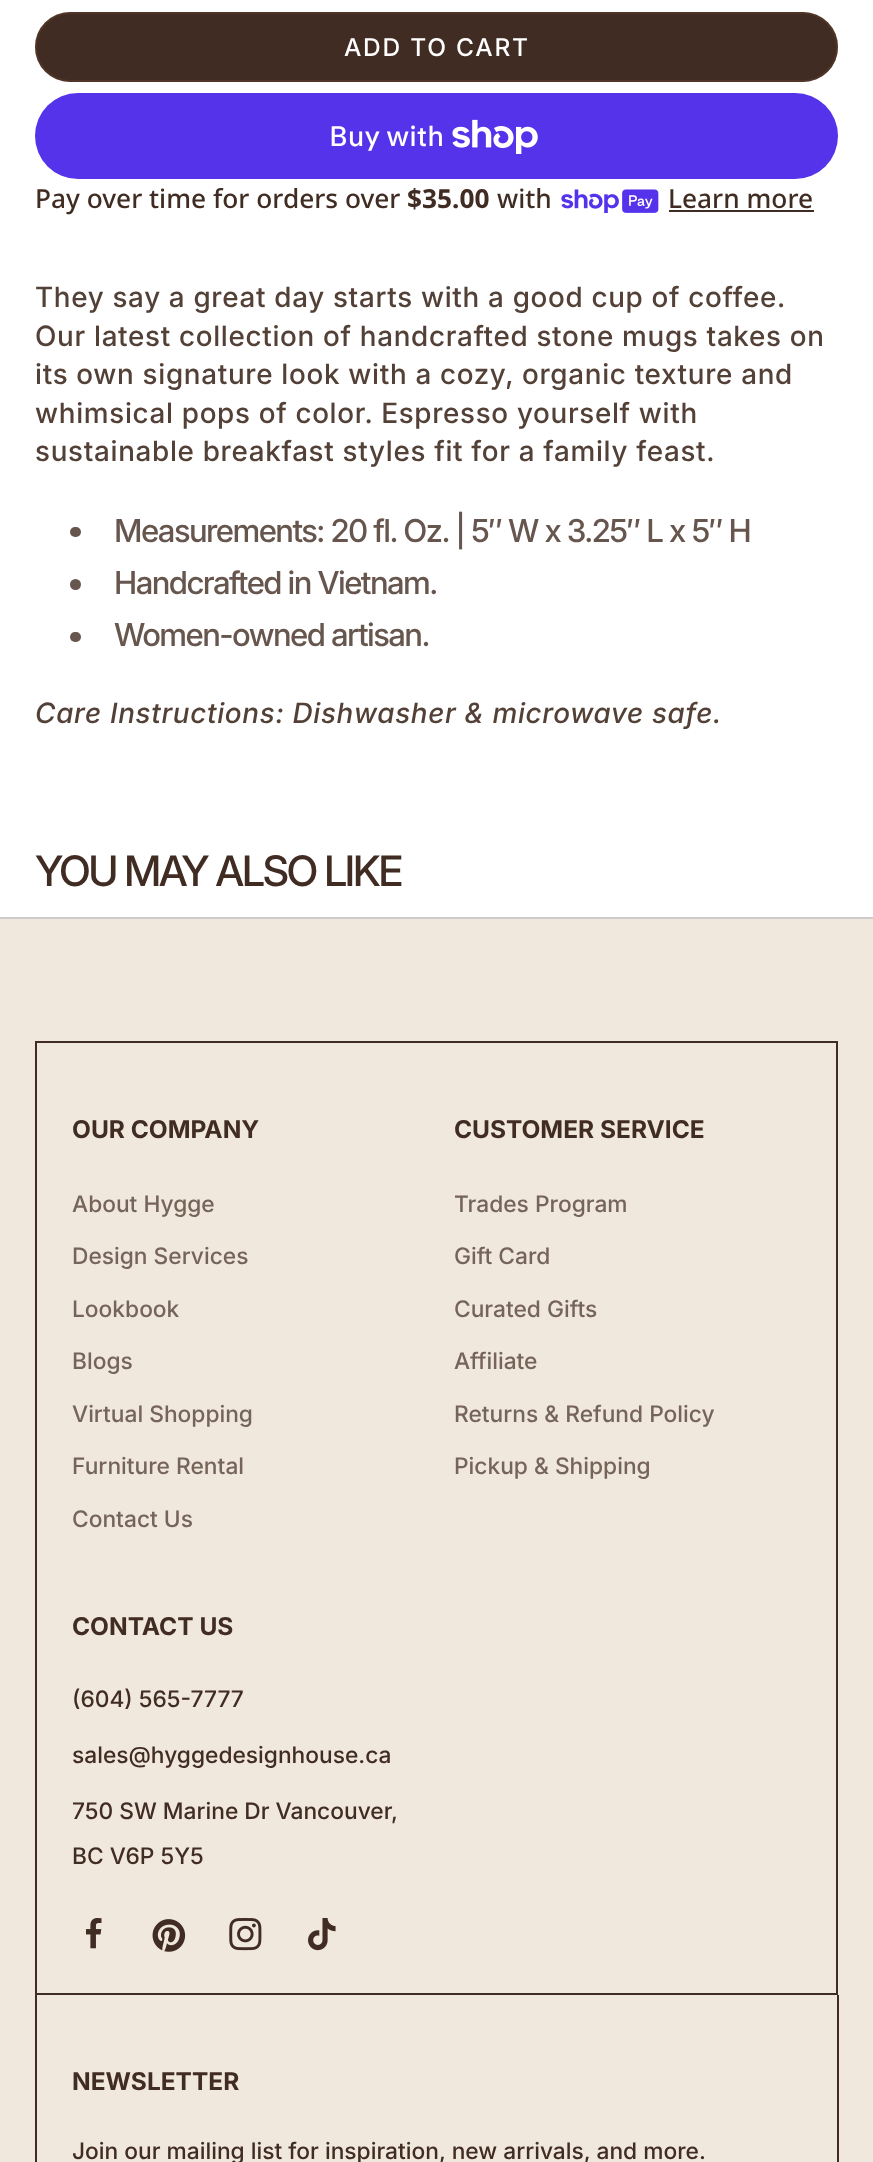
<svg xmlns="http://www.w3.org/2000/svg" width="873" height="2162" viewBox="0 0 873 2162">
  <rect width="100%" height="100%" fill="#fff"/>
  <rect x="35" y="12" width="803" height="70" rx="35" fill="#402c22"/>
  <rect x="36" y="13" width="801" height="68" rx="34" fill="none" stroke="#6b423366" stroke-width="2"/>
  <rect x="35" y="93" width="803" height="86" rx="43" fill="#5433ea"/>
  <image x="452" y="119" width="86" height="35" href="img/1.png"/>
  <image x="561" y="189" width="98" height="24" href="img/2.png"/>
  <path d="M669 210h145v2H669z" fill="#402c22"/>
  <rect x="70" y="527" width="11" height="10" rx="5" fill="#66564e"/>
  <circle cx="75.5" cy="584.5" r="5.5" fill="#66564e"/>
  <rect x="70" y="632" width="11" height="10" rx="5" fill="#66564e"/>
  <path d="M0 919h873v1243H0z" fill="#f0e7dd"/>
  <path d="M0 917h873v2H0z" fill="#ccc"/>
  <path d="M36 1042h801v952H36z" fill="none" stroke="#402c22" stroke-width="2"/>
  <image x="86" y="1918" width="16" height="31" href="img/3.png"/>
  <image x="152" y="1919" width="34" height="33" href="img/4.png"/>
  <image x="229" y="1918" width="33" height="33" href="img/5.png"/>
  <image x="308" y="1918" width="28" height="33" href="img/6.png"/>
  <path d="M837 1995h2v167H837z" fill="#402c22"/>
  <path d="M35 1995h2v167H35z" fill="#402c22"/>
  <text x="344" y="56" font-family="Inter" font-size="24.5" font-weight="500" letter-spacing="1.75" fill="#fff">ADD TO CART</text>
  <text x="329" y="146" font-family="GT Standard" font-size="28" font-weight="500" fill="#fff">Buy with</text>
  <text x="35" y="208" font-family="Noto Sans" font-size="26.25" font-weight="500" fill="#402c22">Pay over time for orders over</text>
  <text x="407" y="208" font-family="Noto Sans" font-size="26.25" font-weight="bold" fill="#402c22">$35.00</text>
  <g font-family="Noto Sans" font-size="26.25" font-weight="500" fill="#402c22">
    <text x="497" y="208">with</text>
    <text x="668" y="208">Learn more</text>
  </g>
  <g font-family="'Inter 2'" font-size="28" font-weight="500" letter-spacing="0.7" fill="#534138">
    <text x="35" y="307">They say a great day starts with a good cup of coffee.</text>
    <text x="35" y="346">Our latest collection of handcrafted stone mugs takes on</text>
    <text x="35" y="384">its own signature look with a cozy, organic texture and</text>
    <text x="35" y="423">whimsical pops of color. Espresso yourself with</text>
    <text x="35" y="461">sustainable breakfast styles fit for a family feast.</text>
  </g>
  <g font-family="'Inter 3'" font-size="31.5" font-weight="500" letter-spacing="-1.55" fill="#66564e">
    <text x="114" y="542">Measurements: 20 fl. Oz. | 5″ W x 3.25″ L x 5″ H</text>
    <text x="114" y="594">Handcrafted in Vietnam.</text>
    <text x="114" y="646">Women-owned artisan.</text>
  </g>
  <text x="35" y="723" font-family="Inter" font-size="28" font-weight="500" font-style="italic" letter-spacing="0.7" fill="#534138">Care Instructions: Dishwasher &amp; microwave safe.</text>
  <text x="35" y="886" font-family="'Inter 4'" font-size="42" font-weight="500" letter-spacing="-2.5" fill="#402c22">YOU MAY ALSO LIKE</text>
  <text x="72" y="1138" font-family="Inter" font-size="24.5" font-weight="bold" fill="#402c22">OUR COMPANY</text>
  <g font-family="Inter" font-size="22.75" font-weight="500" fill="#75645a">
    <text x="72" y="1212">About Hygge</text>
    <text x="72" y="1264">Design Services</text>
    <text x="72" y="1317">Lookbook</text>
    <text x="72" y="1369">Blogs</text>
    <text x="72" y="1422">Virtual Shopping</text>
    <text x="72" y="1474">Furniture Rental</text>
    <text x="72" y="1527">Contact Us</text>
  </g>
  <text x="454" y="1138" font-family="Inter" font-size="24.5" font-weight="bold" fill="#402c22">CUSTOMER SERVICE</text>
  <g font-family="Inter" font-size="22.75" font-weight="500" fill="#75645a">
    <text x="454" y="1212">Trades Program</text>
    <text x="454" y="1264">Gift Card</text>
    <text x="454" y="1317">Curated Gifts</text>
    <text x="454" y="1369">Affiliate</text>
    <text x="454" y="1422">Returns &amp; Refund Policy</text>
    <text x="454" y="1474">Pickup &amp; Shipping</text>
  </g>
  <text x="72" y="1635" font-family="Inter" font-size="24.5" font-weight="bold" fill="#402c22">CONTACT US</text>
  <g font-family="Inter" font-size="22.75" font-weight="500" fill="#402c22">
    <text x="72" y="1707">(604) 565-7777</text>
    <text x="72" y="1763">sales@hyggedesignhouse.ca</text>
    <text x="72" y="1819">750 SW Marine Dr Vancouver,</text>
    <text x="72" y="1864">BC V6P 5Y5</text>
  </g>
  <text x="72" y="2090" font-family="Inter" font-size="24.5" font-weight="bold" fill="#402c22">NEWSLETTER</text>
  <text x="72" y="2159" font-family="Inter" font-size="22.75" font-weight="500" fill="#402c22">Join our mailing list for inspiration, new arrivals, and more.</text>
</svg>
